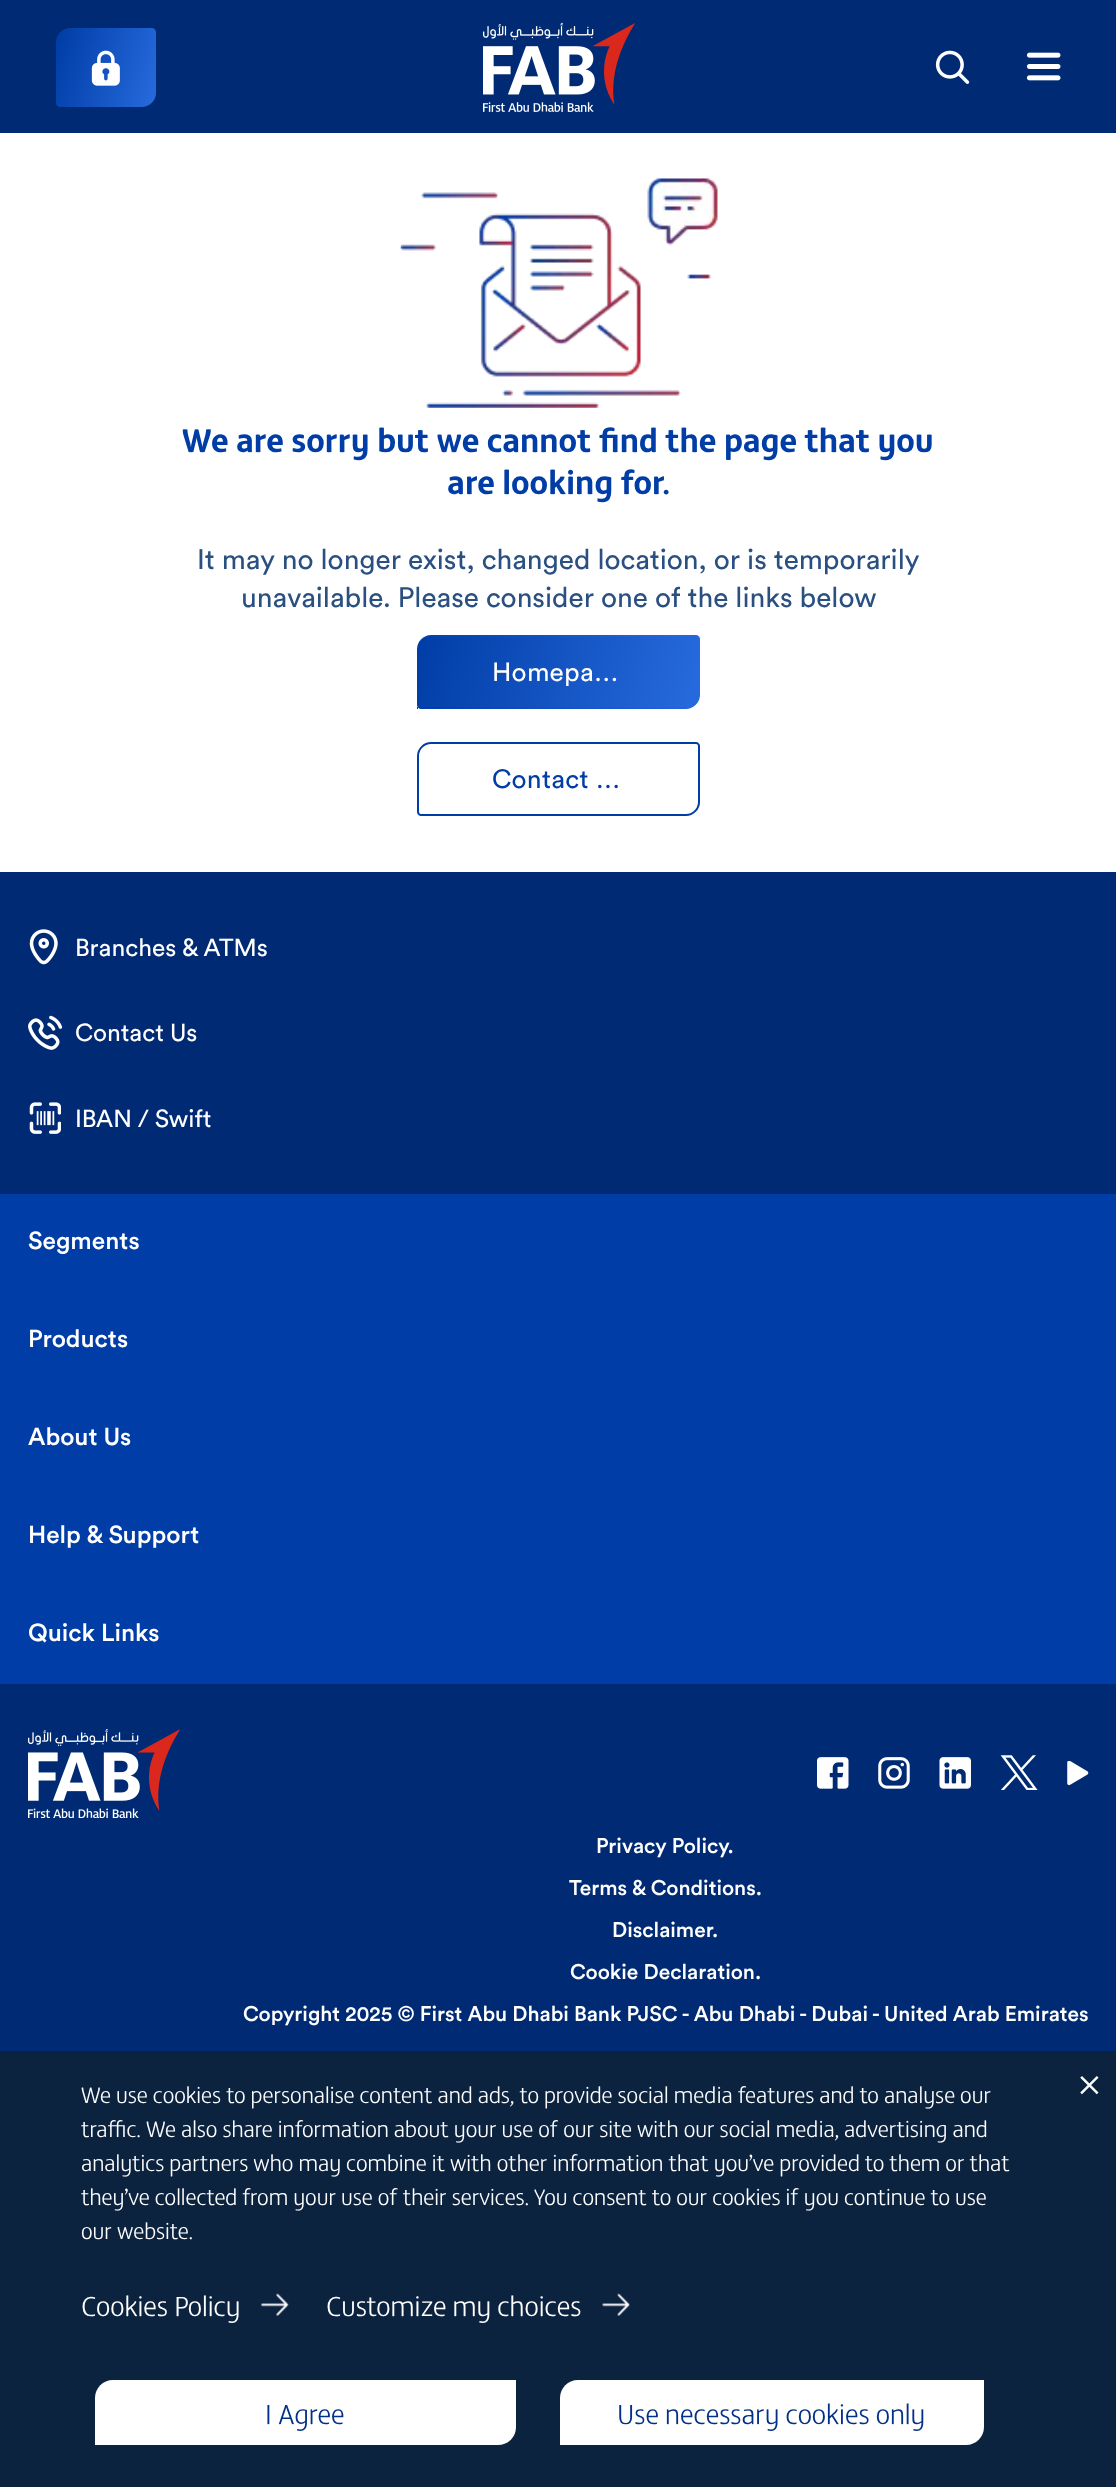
<svg xmlns="http://www.w3.org/2000/svg" width="1116" height="2487" viewBox="0 0 1116 2487">
  <defs>
    <linearGradient id="g1" gradientUnits="userSpaceOnUse" x1="49" y1="52" x2="162" y2="83"><stop offset="0.03" stop-color="#003da6"/><stop offset="0.97" stop-color="#2669dc"/></linearGradient>
    <clipPath id="clip1"><path d="M431 635H696C698 635 700 637 700 639V695C700 702.5 693.5 709 686 709H421C419 709 417 707 417 705V649C417 641.5 423.5 635 431 635Z"/></clipPath>
    <linearGradient id="g2" gradientUnits="userSpaceOnUse" x1="433" y1="511" x2="1103" y2="693"><stop offset="0" stop-color="#003da6"/><stop offset="0.4" stop-color="#2669dc"/><stop offset="0.6" stop-color="#2669dc"/><stop offset="1" stop-color="#003da6"/></linearGradient>
    <linearGradient id="g3" gradientUnits="userSpaceOnUse" x1="-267" y1="581" x2="403" y2="763"><stop offset="0" stop-color="#003da6"/><stop offset="0.4" stop-color="#2669dc"/><stop offset="0.6" stop-color="#2669dc"/><stop offset="1" stop-color="#003da6"/></linearGradient>
    <linearGradient id="g4" gradientUnits="userSpaceOnUse" x1="433" y1="581" x2="1103" y2="763"><stop offset="0" stop-color="#003da6"/><stop offset="0.4" stop-color="#2669dc"/><stop offset="0.6" stop-color="#2669dc"/><stop offset="1" stop-color="#003da6"/></linearGradient>
    <linearGradient id="g5" gradientUnits="userSpaceOnUse" x1="-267" y1="651" x2="403" y2="833"><stop offset="0" stop-color="#003da6"/><stop offset="0.4" stop-color="#2669dc"/><stop offset="0.6" stop-color="#2669dc"/><stop offset="1" stop-color="#003da6"/></linearGradient>
    <linearGradient id="g6" gradientUnits="userSpaceOnUse" x1="433" y1="651" x2="1103" y2="833"><stop offset="0" stop-color="#003da6"/><stop offset="0.4" stop-color="#2669dc"/><stop offset="0.6" stop-color="#2669dc"/><stop offset="1" stop-color="#003da6"/></linearGradient>
  </defs>
  <rect width="100%" height="100%" fill="#fff"/>
  <path d="M0 0h1116v133H0z" fill="#002b74"/>
  <path d="M70 28H152C154 28 156 30 156 32V93C156 100.5 149.5 107 142 107H60C58 107 56 105 56 103V42C56 34.5 62.5 28 70 28Z" fill="url(#g1)"/>
  <image x="91" y="50" width="29" height="36" href="img/1.png"/>
  <image x="483" y="22" width="152" height="90" href="img/2.png"/>
  <image x="935" y="50" width="35" height="34" href="img/3.png"/>
  <image x="1026" y="52" width="35" height="29" href="img/4.png"/>
  <image x="400" y="178" width="318" height="230" href="img/5.png"/>
  <g clip-path="url(#clip1)">
    <path d="M418 635h282v2H418z" fill="url(#g2)"/>
    <path d="M417 637h1v70H417z" fill="url(#g3)"/>
    <path d="M418 637h282v70H418z" fill="url(#g4)"/>
  </g>
  <path d="M417 707h1v2H417z" fill="url(#g5)"/>
  <g clip-path="url(#clip1)">
    <path d="M418 707h282v2H418z" fill="url(#g6)"/>
  </g>
  <path d="M431 743H696C697.5 743 699 744.5 699 746V802C699 809 693 815 686 815H421C419.5 815 418 813.5 418 812V756C418 749 424 743 431 743Z" fill="none" stroke="#003da6" stroke-width="2"/>
  <path d="M0 872h1116v322H0z" fill="#002b74"/>
  <image x="29" y="929" width="29" height="36" href="img/6.png"/>
  <image x="28" y="1015" width="35" height="35" href="img/7.png"/>
  <image x="29" y="1102" width="32" height="32" href="img/8.png"/>
  <path d="M0 1194h1116v490H0z" fill="#003da6"/>
  <path d="M0 1684h1116v367H0z" fill="#002b74"/>
  <image x="28" y="1729" width="152" height="89" href="img/9.png"/>
  <image x="817" y="1757" width="32" height="32" href="img/10.png"/>
  <image x="878" y="1757" width="32" height="32" href="img/11.png"/>
  <image x="939" y="1757" width="32" height="32" href="img/12.png"/>
  <image x="1000" y="1755" width="38" height="35" href="img/13.png"/>
  <image x="1067" y="1761" width="22" height="25" href="img/14.png"/>
  <path d="M0 2051h1116v436H0z" fill="#0c2340"/>
  <image x="261" y="2293" width="28" height="23" href="img/15.png"/>
  <image x="602" y="2293" width="28" height="23" href="img/16.png"/>
  <path d="M113 2380H516V2427C516 2437 508 2445 498 2445H95V2398C95 2388 103 2380 113 2380Z" fill="#fff"/>
  <path d="M578 2380H984V2427C984 2437 976 2445 966 2445H560V2398C560 2388 568 2380 578 2380Z" fill="#fff"/>
  <image x="1080" y="2076" width="19" height="19" href="img/17.png"/>
  <g font-family="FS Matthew" font-size="33.25" font-weight="bold" fill="#003da6">
    <text x="182" y="452">We are sorry but we cannot find the page that you</text>
    <text x="447" y="494">are looking for.</text>
  </g>
  <g font-family="Circular" font-size="28" fill="#2a5082">
    <text x="197" y="569">It may no longer exist, changed location, or is temporarily</text>
    <text x="241" y="607">unavailable. Please consider one of the links below</text>
  </g>
  <text x="492" y="681" font-family="Circular" font-size="26.25" letter-spacing="0.25" fill="#fff">Homepa…</text>
  <text x="492" y="788" font-family="Circular" font-size="26.25" letter-spacing="0.25" fill="#003da6">Contact …</text>
  <g font-family="Circular" font-size="24.5" fill="#fff">
    <text x="75" y="956">Branches &amp; ATMs</text>
    <text x="75" y="1041">Contact Us</text>
    <text x="75" y="1127">IBAN / Swift</text>
  </g>
  <g font-family="Circular" font-size="24.5" font-weight="500" fill="#fff">
    <text x="28" y="1249">Segments</text>
    <text x="28" y="1347">Products</text>
    <text x="28" y="1445">About Us</text>
    <text x="28" y="1543">Help &amp; Support</text>
    <text x="28" y="1641">Quick Links</text>
  </g>
  <g font-family="Circular" font-size="21" font-weight="500" fill="#fff">
    <text x="596" y="1853">Privacy Policy.</text>
    <text x="569" y="1895">Terms &amp; Conditions.</text>
    <text x="612" y="1937">Disclaimer.</text>
    <text x="570" y="1979">Cookie Declaration.</text>
    <text x="243" y="2021">Copyright 2025 © First Abu Dhabi Bank PJSC - Abu Dhabi - Dubai - United Arab Emirates</text>
  </g>
  <g font-family="FS Matthew" font-size="22.75" font-weight="300" fill="#fff">
    <text x="81" y="2103">We use cookies to personalise content and ads, to provide social media features and to analyse our</text>
    <text x="81" y="2137">traffic. We also share information about your use of our site with our social media, advertising and</text>
    <text x="81" y="2171">analytics partners who may combine it with other information that you’ve provided to them or that</text>
    <text x="81" y="2205">they’ve collected from your use of their services. You consent to our cookies if you continue to use</text>
    <text x="81" y="2239">our website.</text>
  </g>
  <g font-family="FS Matthew" font-size="28" font-weight="300" fill="#fff">
    <text x="81" y="2316">Cookies Policy</text>
    <text x="326" y="2316">Customize my choices</text>
  </g>
  <g font-family="FS Matthew" font-size="28" font-weight="300" fill="#003087">
    <text x="265" y="2424">I Agree</text>
    <text x="617" y="2424">Use necessary cookies only</text>
  </g>
</svg>
